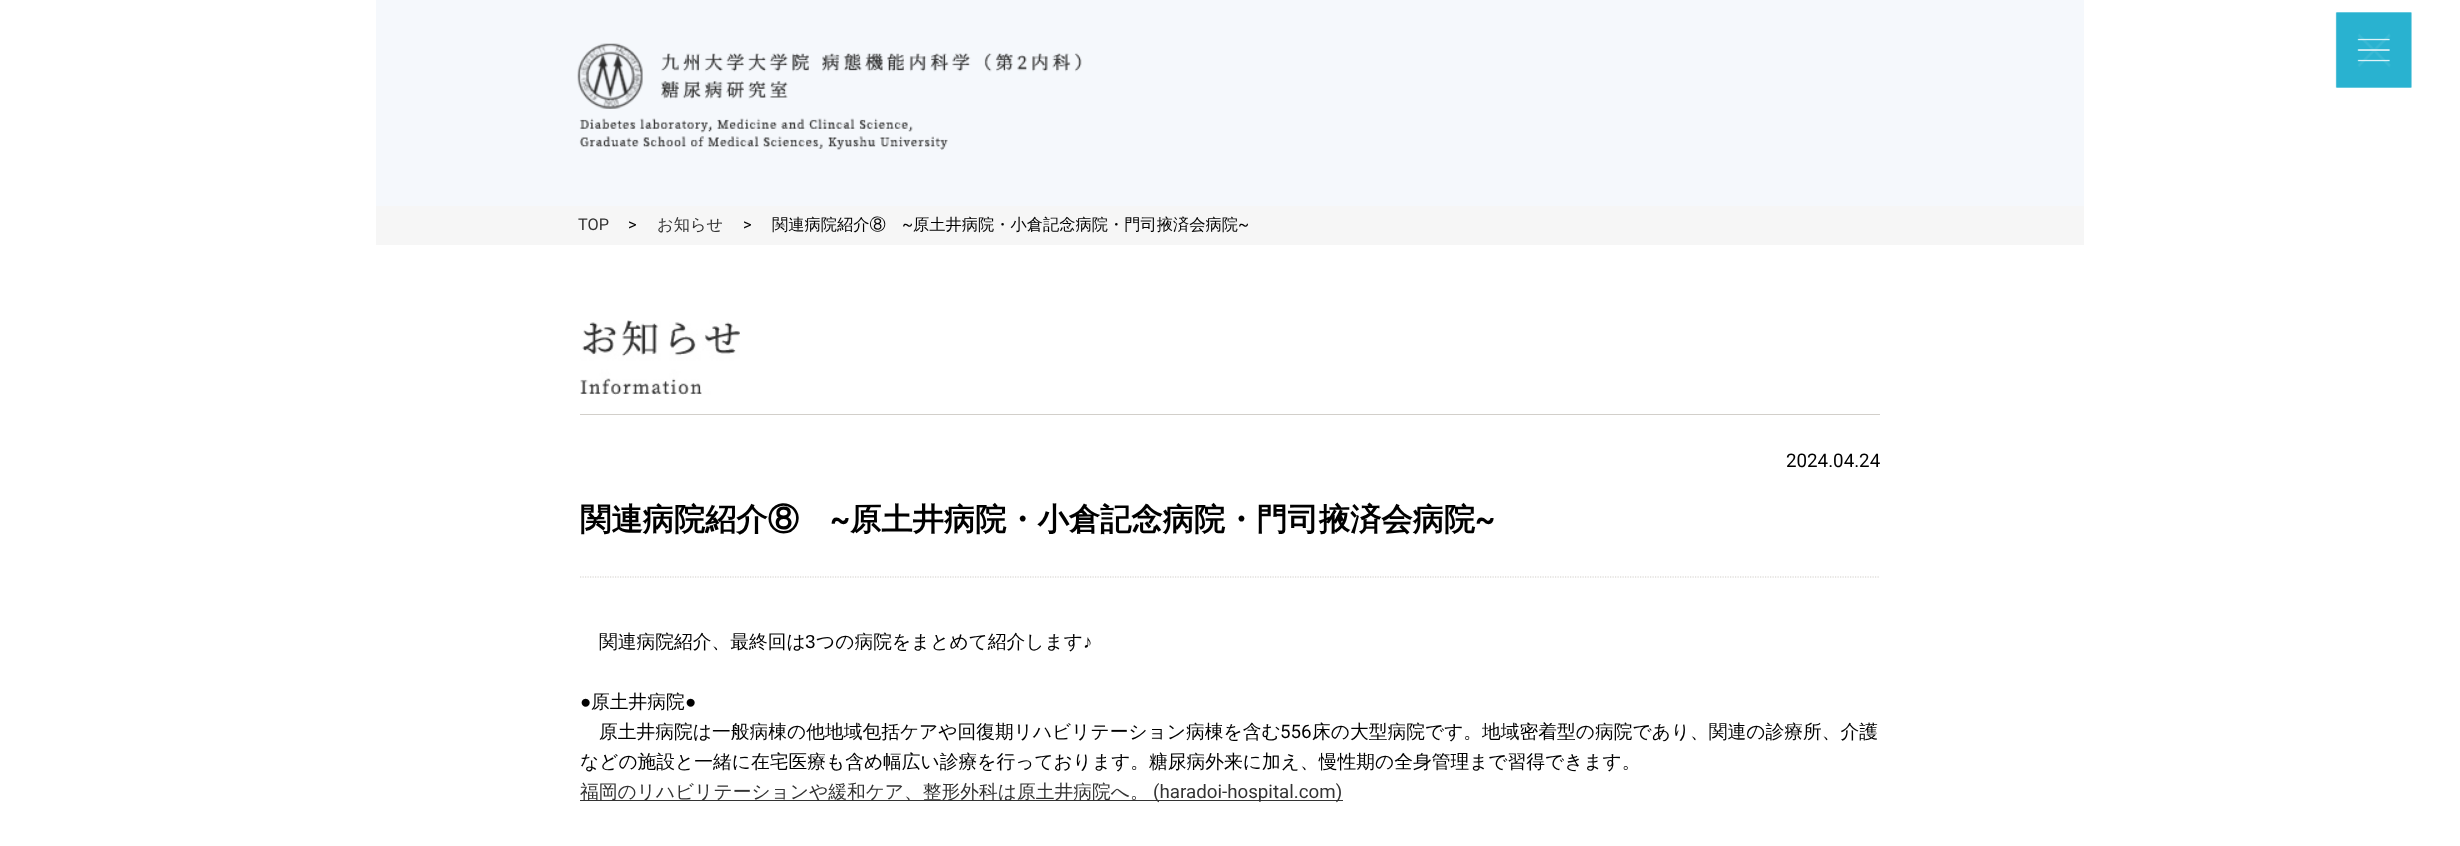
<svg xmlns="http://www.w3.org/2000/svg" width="2460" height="846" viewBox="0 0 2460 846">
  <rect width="100%" height="100%" fill="#fff"/>
  <path d="M376 0h1708v206H376z" fill="#f5f8fc"/>
  <image x="577" y="43" width="505" height="107" href="img/1.png"/>
  <image x="2335" y="12" width="77" height="76" href="img/2.png"/>
  <image x="2335" y="12" width="77" height="76" href="img/3.png"/>
  <path d="M376 206h1708v39H376z" fill="#f6f6f6"/>
  <path d="M580 414h1300v1H580z" fill="#d2cfca"/>
  <image x="580" y="320" width="160" height="75" href="img/4.png"/>
  <path d="M580 577H1880" fill="none" stroke="#d2cfca" stroke-width="1.2" stroke-dasharray="1.25 1.25"/>
  <path d="M580 800h763v1H580z" fill="#333"/>
  <text x="578" y="230" font-family="Roboto" font-size="16.25" fill="#333">TOP</text>
  <text x="628" y="230" font-family="Roboto" font-size="16.25" fill="#000">&gt;</text>
  <text x="657" y="230" font-family="WenQuanYi Zen Hei" font-size="16.25" font-weight="500" fill="#333">お知らせ</text>
  <text x="743" y="230" font-family="Roboto" font-size="16.25" fill="#000">&gt;</text>
  <text x="772" y="230" font-family="WenQuanYi Zen Hei" font-size="16.25" font-weight="500" fill="#000">関連病院紹介⑧</text>
  <text x="902" y="230" font-family="Roboto" font-size="16.25" fill="#000">~</text>
  <text x="913" y="230" font-family="WenQuanYi Zen Hei" font-size="16.25" font-weight="500" fill="#000">原土井病院・小倉記念病院・門司掖済会病院</text>
  <text x="1238" y="230" font-family="Roboto" font-size="16.25" fill="#000">~</text>
  <text x="1786" y="467" font-family="Roboto" font-size="18.75" fill="#000">2024.04.24</text>
  <text x="580" y="530" font-family="WenQuanYi Zen Hei" font-size="31.25" font-weight="bold" fill="#000">関連病院紹介⑧</text>
  <text x="830" y="530" font-family="Roboto" font-size="31.25" font-weight="bold" fill="#000">~</text>
  <text x="850" y="530" font-family="WenQuanYi Zen Hei" font-size="31.25" font-weight="bold" fill="#000">原土井病院・小倉記念病院・門司掖済会病院</text>
  <text x="1475" y="530" font-family="Roboto" font-size="31.25" font-weight="bold" fill="#000">~</text>
  <text x="599" y="648" font-family="WenQuanYi Zen Hei" font-size="18.75" font-weight="500" fill="#000">関連病院紹介、最終回は</text>
  <text x="805" y="648" font-family="Liberation Sans" font-size="18.75" fill="#000">3</text>
  <text x="816" y="648" font-family="WenQuanYi Zen Hei" font-size="18.75" font-weight="500" fill="#000">つの病院をまとめて紹介します</text>
  <g font-family="Liberation Sans" font-size="18.75" fill="#000">
    <text x="1083" y="648">♪</text>
    <text x="580" y="708">●</text>
  </g>
  <text x="591" y="708" font-family="WenQuanYi Zen Hei" font-size="18.75" font-weight="500" fill="#000">原土井病院</text>
  <text x="685" y="708" font-family="Liberation Sans" font-size="18.75" fill="#000">●</text>
  <text x="599" y="738" font-family="WenQuanYi Zen Hei" font-size="18.75" font-weight="500" fill="#000">原土井病院は一般病棟の他地域包括ケアや回復期リハビリテーション病棟を含む</text>
  <text x="1280" y="738" font-family="Roboto" font-size="18.75" fill="#000">556</text>
  <g font-family="WenQuanYi Zen Hei" font-size="18.75" font-weight="500" fill="#000">
    <text x="1312" y="738">床の大型病院です。地域密着型の病院であり、関連の診療所、介護</text>
    <text x="580" y="768">などの施設と一緒に在宅医療も含め幅広い診療を行っております。糖尿病外来に加え、慢性期の全身管理まで習得できます。</text>
  </g>
  <text x="580" y="798" font-family="WenQuanYi Zen Hei" font-size="18.75" font-weight="500" fill="#333">福岡のリハビリテーションや緩和ケア、整形外科は原土井病院へ。</text>
  <text x="1153" y="798" font-family="Roboto" font-size="18.75" fill="#333">(haradoi-hospital.com)</text>
</svg>
